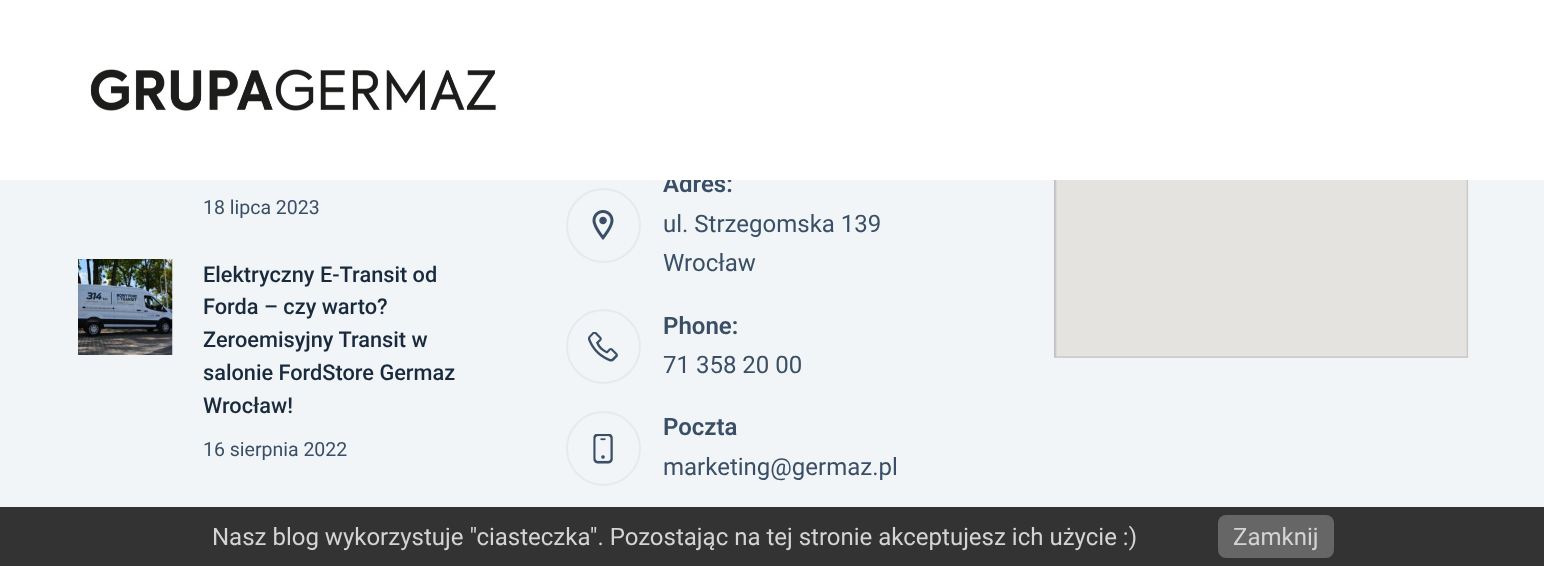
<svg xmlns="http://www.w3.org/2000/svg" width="1544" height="566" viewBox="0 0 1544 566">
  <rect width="100%" height="100%" fill="#f2f5f7"/>
  <image x="78" y="259" width="95" height="96" href="img/2.png"/>
  <circle cx="603.5" cy="225.5" r="36.5" fill="none" stroke="#e6eaee" stroke-width="2"/>
  <image x="592" y="210" width="22" height="30" href="img/3.png"/>
  <circle cx="603.5" cy="346.5" r="36.5" fill="none" stroke="#e6eaee" stroke-width="2"/>
  <image x="588" y="332" width="30" height="30" href="img/4.png"/>
  <circle cx="603.5" cy="448.5" r="36.5" fill="none" stroke="#e6eaee" stroke-width="2"/>
  <image x="593" y="434" width="20" height="30" href="img/5.png"/>
  <image x="1054" y="180" width="415" height="178" href="img/6.png"/>
  <path d="M0 507h1544v59H0z" fill="#333"/>
  <rect x="1218" y="515" width="116" height="43" rx="8" fill="#666"/>
  <text x="203" y="214" font-family="Roboto" font-size="19.5" fill="#3a4f66">18 lipca 2023</text>
  <g font-family="Roboto" font-size="21.75" font-weight="500" fill="#192a3d">
    <text x="203" y="282">Elektryczny E-Transit od</text>
    <text x="203" y="314">Forda – czy warto?</text>
    <text x="203" y="347">Zeroemisyjny Transit w</text>
    <text x="203" y="380">salonie FordStore Germaz</text>
    <text x="203" y="413">Wrocław!</text>
  </g>
  <text x="203" y="456" font-family="Roboto" font-size="19.5" fill="#3a4f66">16 sierpnia 2022</text>
  <text x="663" y="192" font-family="Roboto" font-size="24" font-weight="600" fill="#3a4f66">Adres:</text>
  <path d="M0 0h1544v180H0z" fill="#fff"/>
  <image x="90" y="69" width="409" height="42" href="img/1.png"/>
  <g font-family="Roboto" font-size="24" fill="#3a4f66">
    <text x="663" y="232">ul. Strzegomska 139</text>
    <text x="663" y="271">Wrocław</text>
  </g>
  <text x="663" y="334" font-family="Roboto" font-size="24" font-weight="600" fill="#3a4f66">Phone:</text>
  <text x="663" y="373" font-family="Roboto" font-size="24" fill="#3a4f66">71 358 20 00</text>
  <text x="663" y="435" font-family="Roboto" font-size="24" font-weight="600" fill="#3a4f66">Poczta</text>
  <text x="663" y="475" font-family="Roboto" font-size="24" fill="#3a4f66">marketing@germaz.pl</text>
  <g font-family="Roboto" font-size="24" fill="#d4d4d4">
    <text x="212" y="545">Nasz blog wykorzystuje "ciasteczka". Pozostając na tej stronie akceptujesz ich użycie :)</text>
    <text x="1233" y="545">Zamknij</text>
  </g>
</svg>
